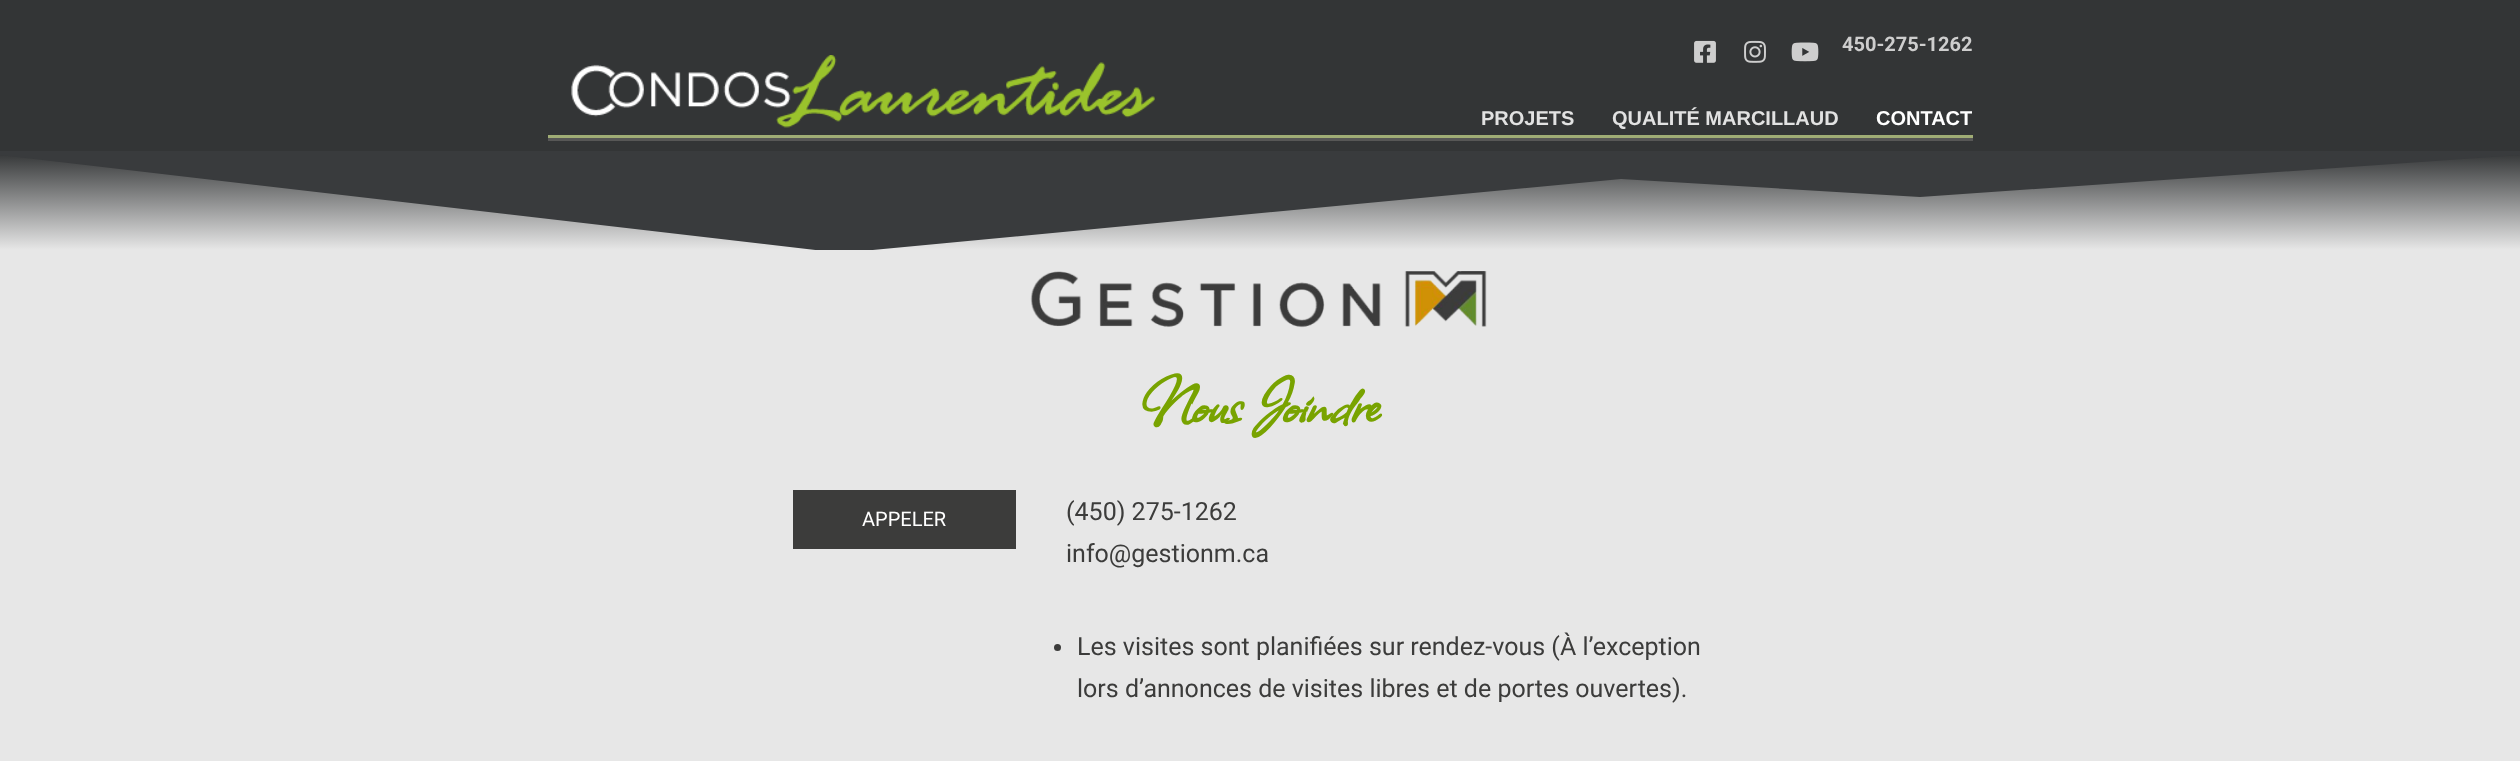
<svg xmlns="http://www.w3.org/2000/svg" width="2520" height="761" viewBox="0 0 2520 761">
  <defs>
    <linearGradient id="g1" gradientUnits="userSpaceOnUse" x1="1260" y1="152" x2="1260" y2="250"><stop offset="0" stop-color="#333536"/><stop offset="1" stop-color="#e7e7e7"/></linearGradient>
  </defs>
  <rect width="100%" height="100%" fill="#333536"/>
  <image x="1694" y="40" width="22" height="23" href="img/1.png"/>
  <image x="1744" y="40" width="22" height="23" href="img/2.png"/>
  <image x="1791" y="42" width="28" height="20" href="img/3.png"/>
  <path d="M548 138h1425v3H548z" fill="#575756"/>
  <path d="M548 135h1425v3H548z" fill="#a0ad75"/>
  <image x="571" y="55" width="584" height="73" href="img/4.png"/>
  <path d="M0 155h2520v95H0z" fill="url(#g1)"/>
  <path d="M1920 197L1621 179L841 253L-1 155V151H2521V155" fill="#393b3d"/>
  <path d="M0 250h2520v511H0z" fill="#e7e7e7"/>
  <image x="1030" y="271" width="457" height="57" href="img/5.png"/>
  <path d="M793 490h223v59H793z" fill="#3c3c3b"/>
  <circle cx="1057.5" cy="647.5" r="3.5" fill="#3c3c3b"/>
  <text x="1842" y="51" font-family="Roboto" font-size="20" font-weight="bold" fill="#cecece">450-275-1262</text>
  <g font-family="Liberation Sans" font-size="20" font-weight="bold" fill="#e2e2e2">
    <text x="1481" y="125">PROJETS</text>
    <text x="1612" y="125">QUALITÉ MARCILLAUD</text>
  </g>
  <text x="1876" y="125" font-family="Liberation Sans" font-size="20" font-weight="bold" fill="#fff">CONTACT</text>
  <text x="1142" y="421" font-family="Allison" font-size="70" font-weight="bold" fill="#78a300">Nous Joindre</text>
  <text x="862" y="526" font-family="Roboto" font-size="20" fill="#fff">APPELER</text>
  <g font-family="Roboto" font-size="25" fill="#3c3c3b">
    <text x="1066" y="520">(450) 275-1262</text>
    <text x="1066" y="562">info@gestionm.ca</text>
    <text x="1077" y="655">Les visites sont planifiées sur rendez-vous (À l’exception</text>
    <text x="1077" y="697">lors d’annonces de visites libres et de portes ouvertes).</text>
  </g>
</svg>
